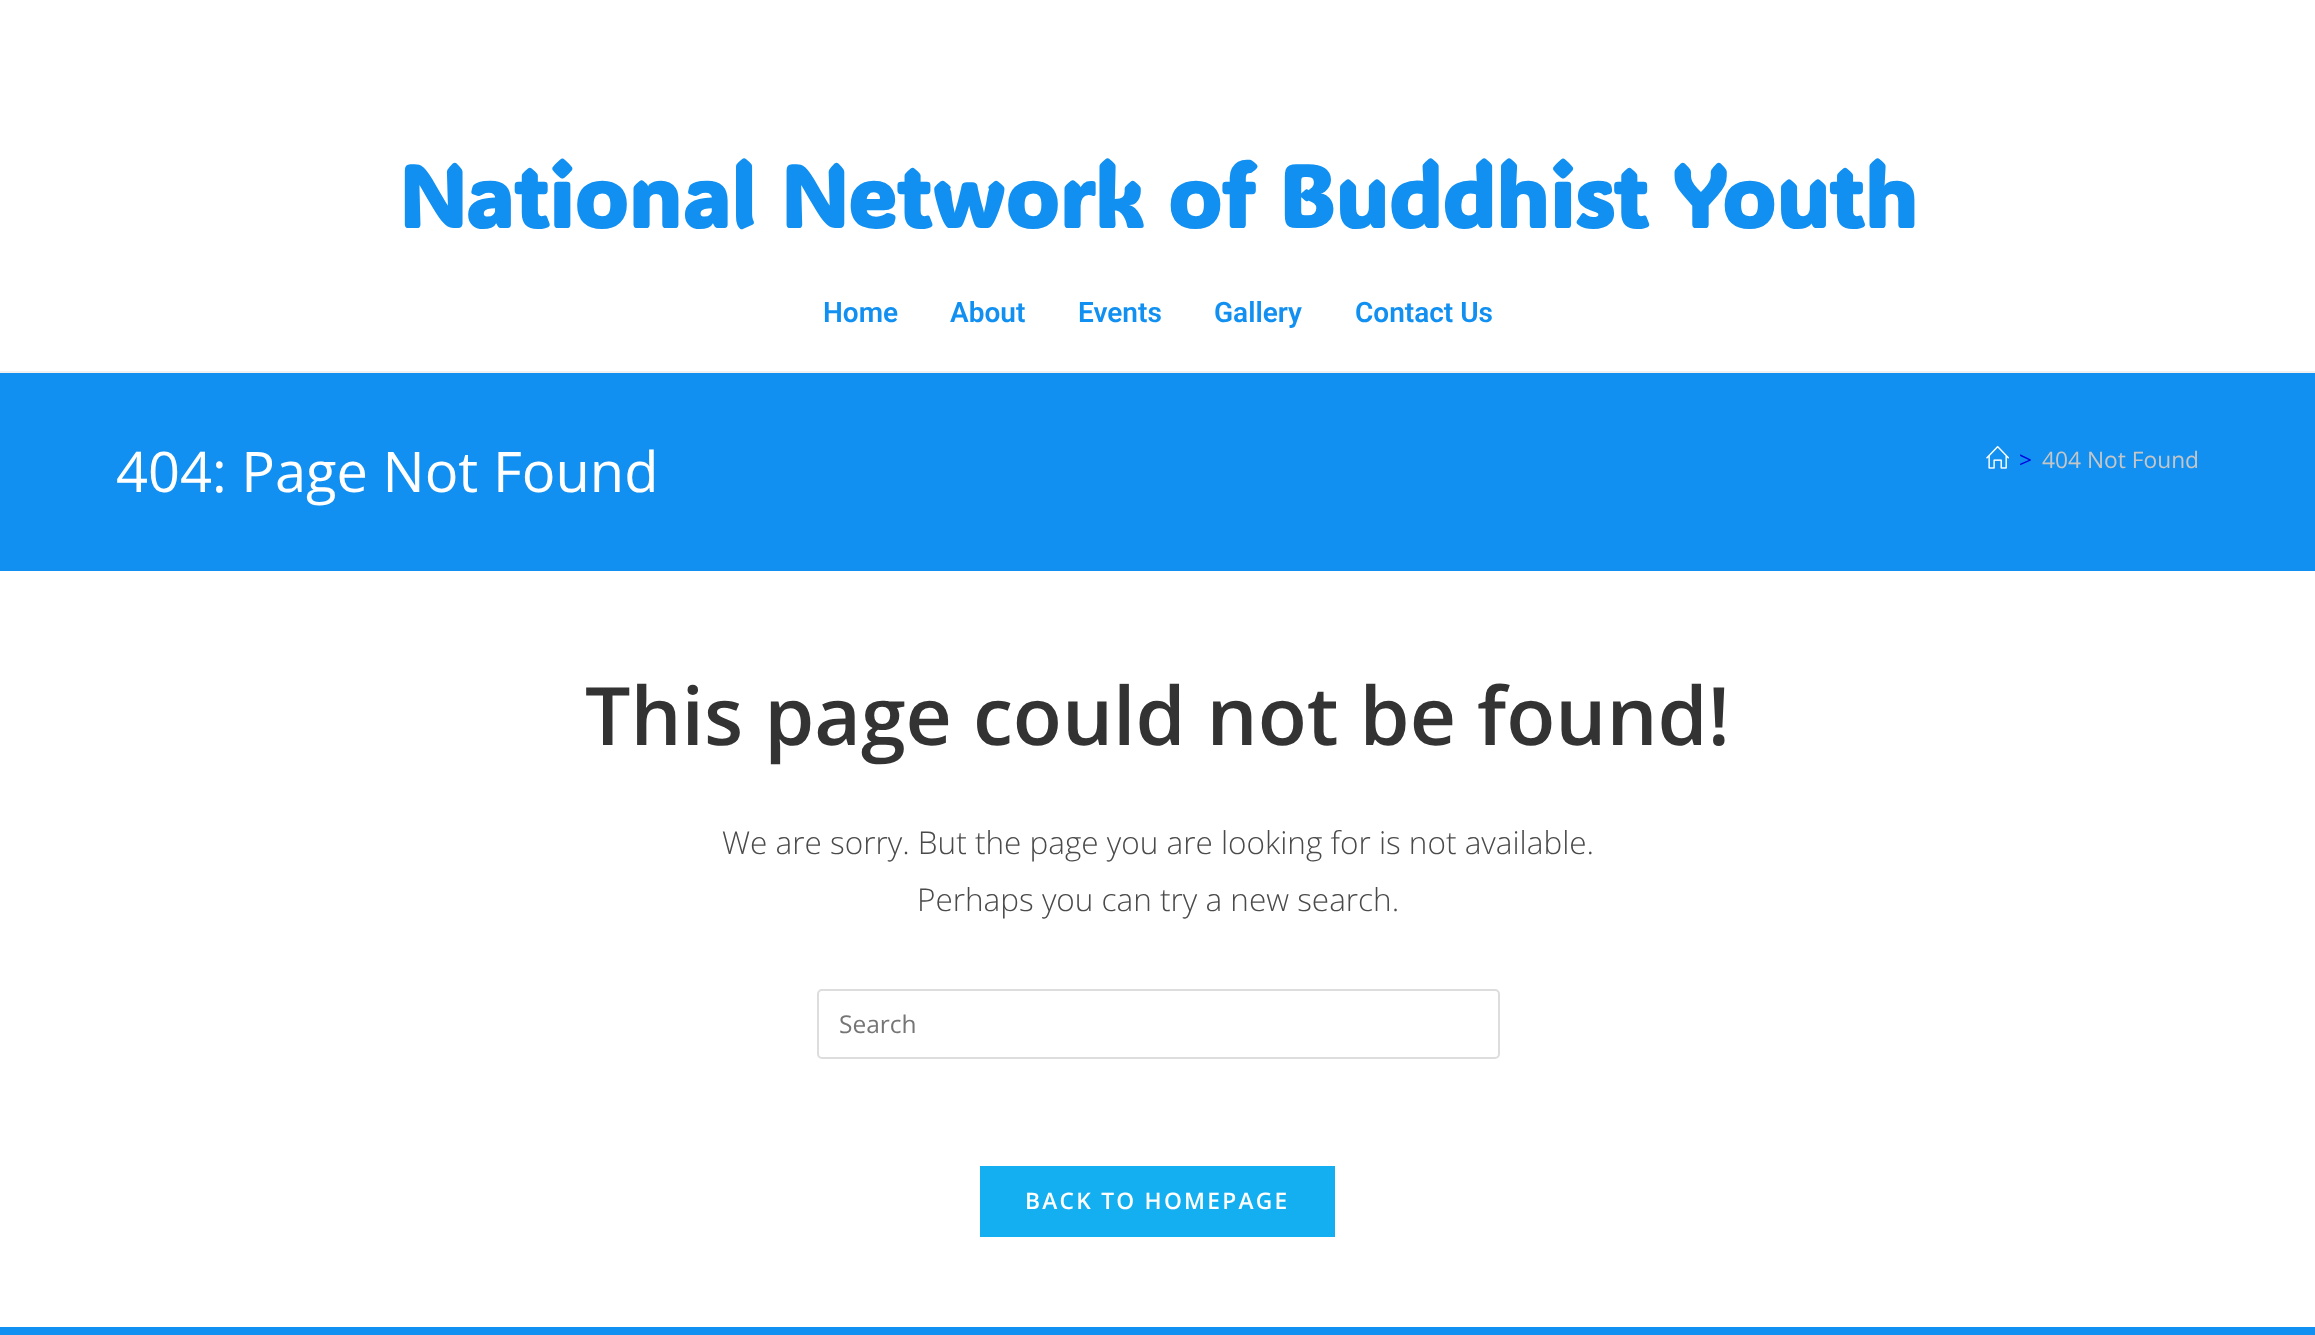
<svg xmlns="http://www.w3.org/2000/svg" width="2315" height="1335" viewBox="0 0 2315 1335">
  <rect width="100%" height="100%" fill="#fff"/>
  <path d="M0 371h2315v2H0z" fill="#f1f1f1"/>
  <path d="M0 373h2315v198H0z" fill="#1190f1"/>
  <image x="1986" y="445" width="23" height="24" href="img/1.png"/>
  <rect x="818" y="990" width="681" height="68" rx="4" fill="none" stroke="#ddd" stroke-width="2"/>
  <path d="M980 1166h355v71H980z" fill="#13aff0"/>
  <path d="M0 1327h2315v8H0z" fill="#1190f1"/>
  <text x="398" y="228" font-family="ADLaM Display" font-size="87.5" font-weight="bold" fill="#1190f1">National Network of Buddhist Youth</text>
  <g font-family="Roboto" font-size="28" font-weight="600" fill="#1190f1">
    <text x="823" y="322">Home</text>
    <text x="950" y="322">About</text>
    <text x="1078" y="322">Events</text>
    <text x="1214" y="322">Gallery</text>
    <text x="1355" y="322">Contact Us</text>
  </g>
  <text x="116" y="492" font-family="Open Sans" font-size="56" fill="#fff">404: Page Not Found</text>
  <text x="2019" y="468" font-family="Open Sans" font-size="22.75" fill="#00d">&gt;</text>
  <text x="2042" y="468" font-family="Open Sans" font-size="22.75" fill="#c6c6c6">404 Not Found</text>
  <text x="585" y="745" font-family="Open Sans" font-size="80.5" font-weight="600" fill="#333">This page could not be found!</text>
  <g font-family="Open Sans" font-size="31.5" font-weight="300" fill="#4a4a4a">
    <text x="722" y="854">We are sorry. But the page you are looking for is not available.</text>
    <text x="917" y="911">Perhaps you can try a new search.</text>
  </g>
  <text x="839" y="1033" font-family="Open Sans" font-size="24.5" fill="#757575">Search</text>
  <text x="1025" y="1209" font-family="Open Sans" font-size="22.75" font-weight="600" letter-spacing="2.25" fill="#fff">BACK TO HOMEPAGE</text>
</svg>
